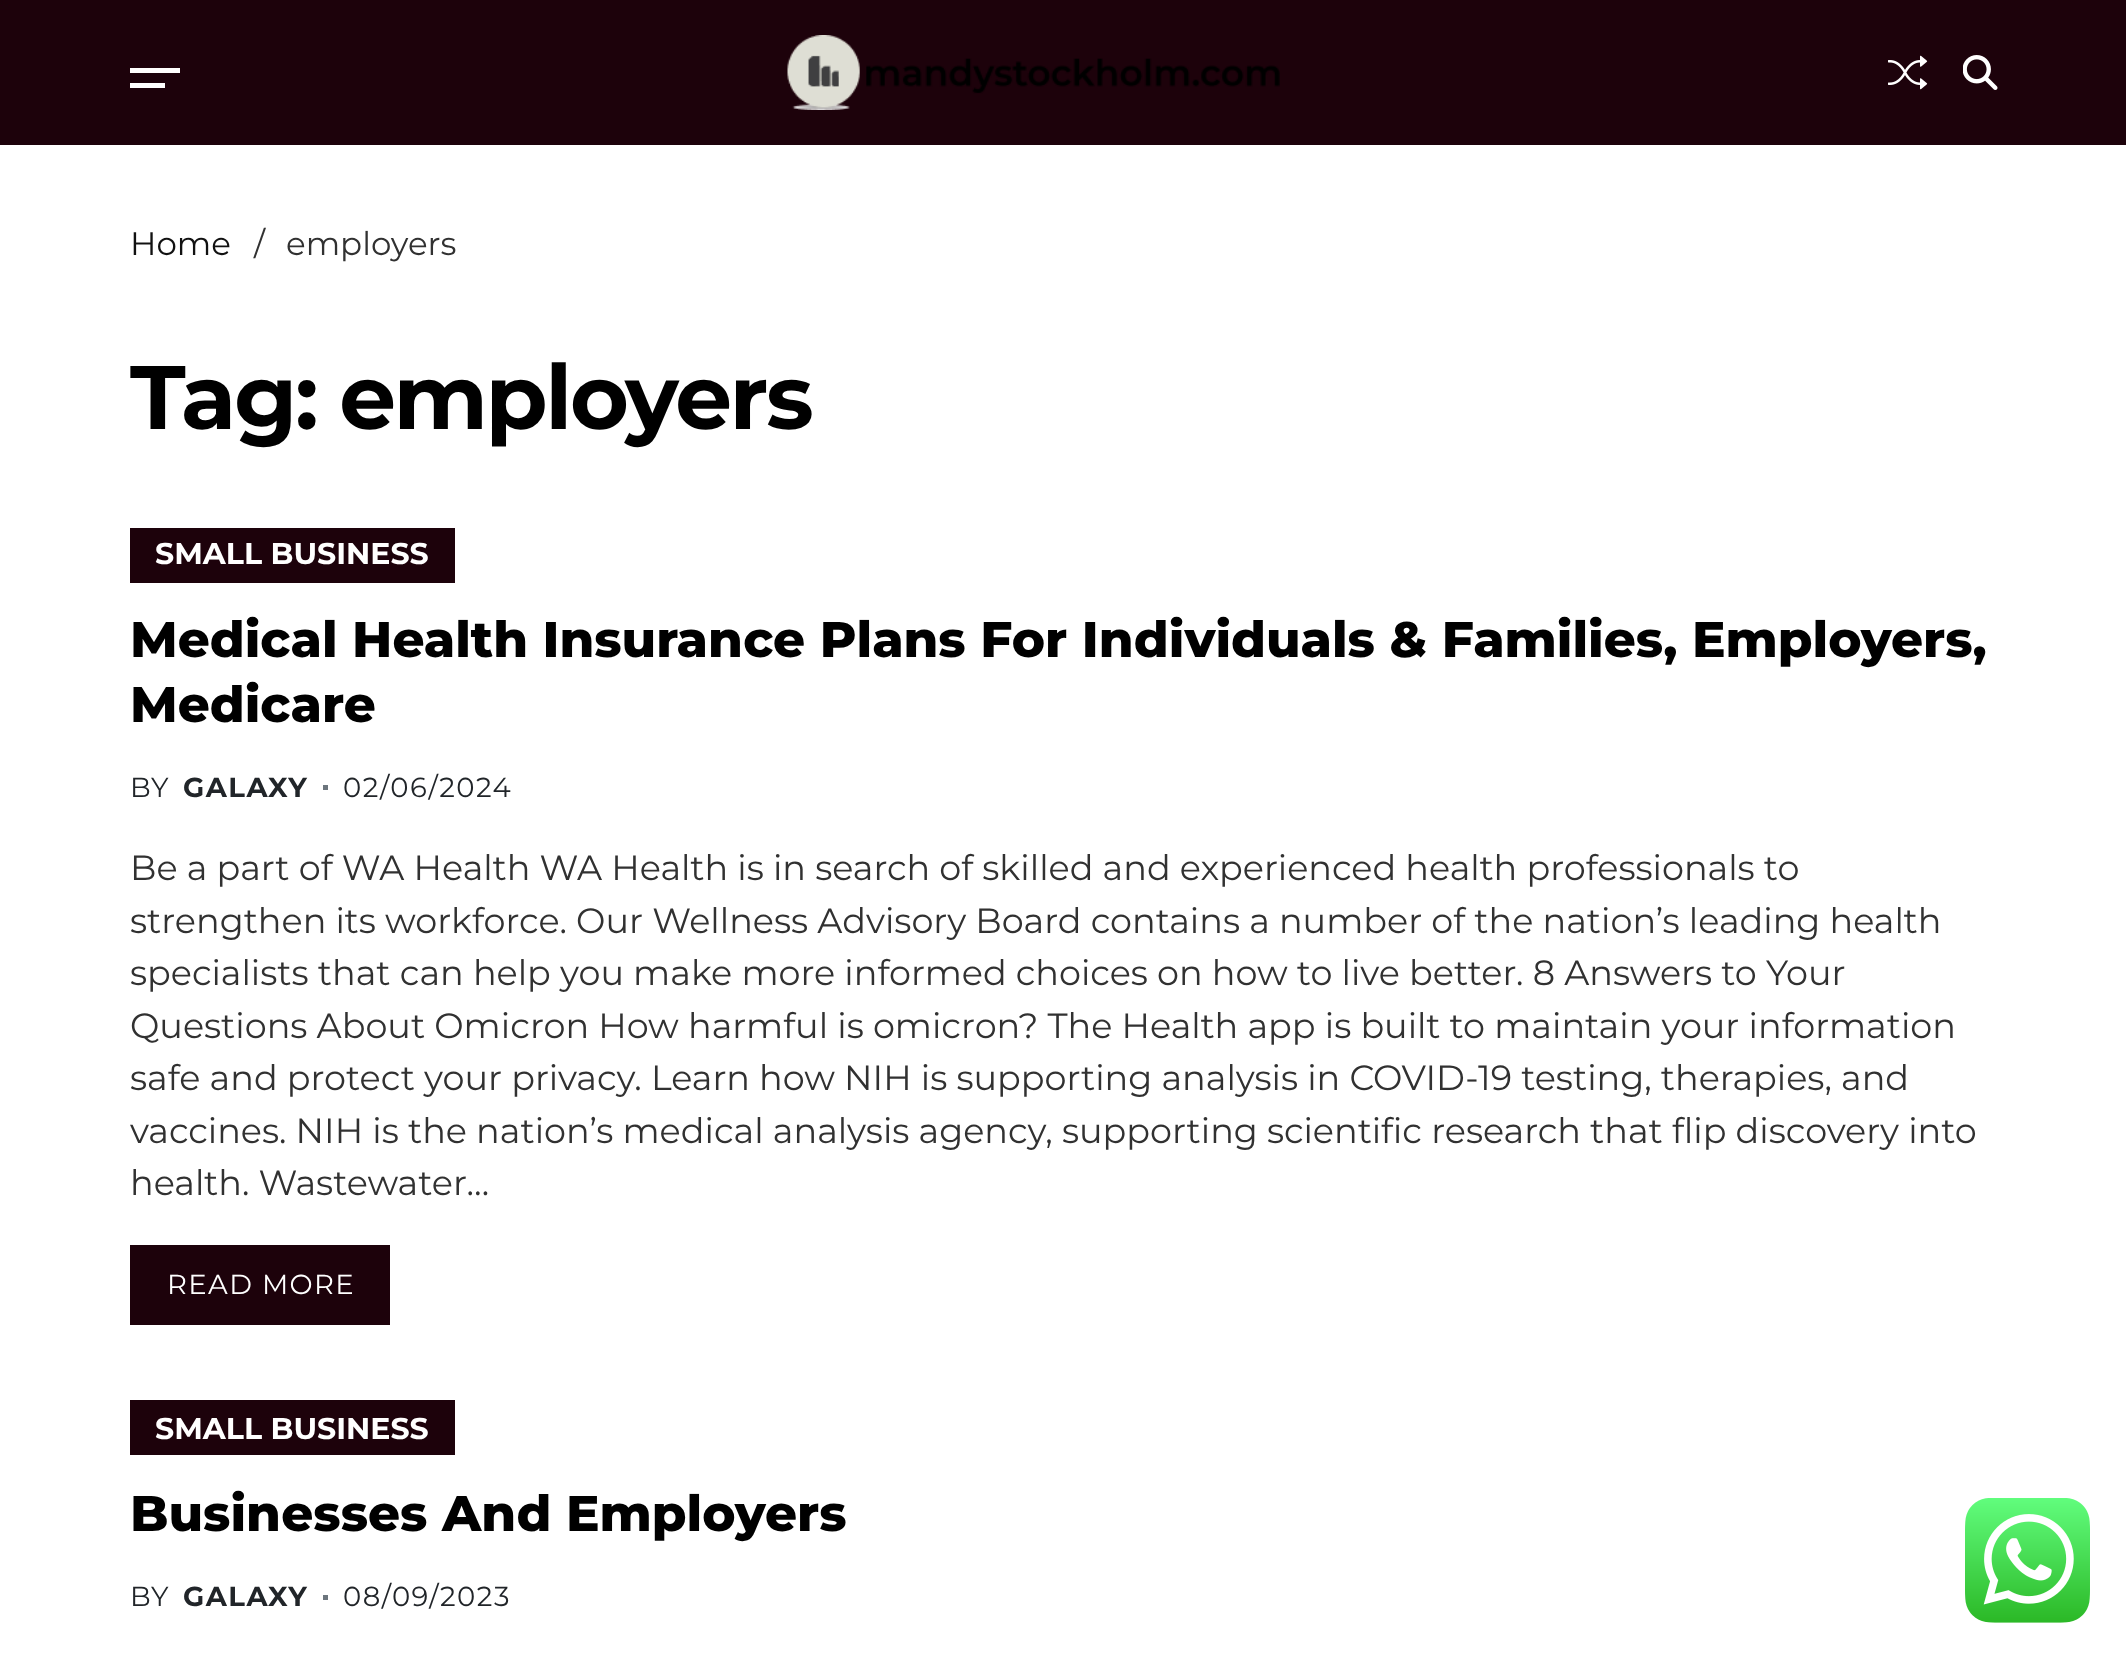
<svg xmlns="http://www.w3.org/2000/svg" width="2126" height="1660" viewBox="0 0 2126 1660">
  <rect width="100%" height="100%" fill="#fff"/>
  <path d="M0 0h2126v145H0z" fill="#1d020b"/>
  <path d="M130 68h50v5H130z" fill="#fff"/>
  <path d="M130 83h35v5H130z" fill="#fff"/>
  <image x="787" y="35" width="493" height="75" href="img/1.png"/>
  <image x="1888" y="55" width="40" height="35" href="img/2.png"/>
  <image x="1963" y="55" width="35" height="35" href="img/3.png"/>
  <path d="M130 528h325v55H130z" fill="#1d020b"/>
  <path d="M323 785h5v5H323z" fill="#6c757d"/>
  <path d="M130 1245h260v80H130z" fill="#1d020b"/>
  <path d="M130 1400h325v55H130z" fill="#1d020b"/>
  <path d="M323 1595h5v5H323z" fill="#6c757d"/>
  <image x="1965" y="1498" width="125" height="125" href="img/4.png"/>
  <text x="130" y="255" font-family="Montserrat" font-size="32.5" fill="#111">Home</text>
  <g font-family="Montserrat" font-size="32.5" fill="#313131">
    <text x="254" y="255">/</text>
    <text x="286" y="255">employers</text>
  </g>
  <text x="130" y="429" font-family="Montserrat" font-size="90" font-weight="bold" letter-spacing="-2.4" fill="#000">Tag: employers</text>
  <text x="155" y="564" font-family="Montserrat" font-size="30" font-weight="bold" fill="#fff">SMALL BUSINESS</text>
  <g font-family="Montserrat" font-size="50" font-weight="800" fill="#000">
    <text x="130" y="657">Medical Health Insurance Plans For Individuals &amp; Families, Employers,</text>
    <text x="130" y="722">Medicare</text>
  </g>
  <text x="130" y="797" font-family="Montserrat" font-size="27.5" letter-spacing="1.5" fill="#212529">BY</text>
  <text x="183" y="797" font-family="Montserrat" font-size="27.5" font-weight="bold" letter-spacing="1.5" fill="#212529">GALAXY</text>
  <text x="343" y="797" font-family="Montserrat" font-size="27.5" letter-spacing="1.5" fill="#212529">02/06/2024</text>
  <g font-family="Montserrat" font-size="35" fill="#313131">
    <text x="130" y="880">Be a part of WA Health WA Health is in search of skilled and experienced health professionals to</text>
    <text x="130" y="933">strengthen its workforce. Our Wellness Advisory Board contains a number of the nation’s leading health</text>
    <text x="130" y="985">specialists that can help you make more informed choices on how to live better. 8 Answers to Your</text>
    <text x="130" y="1038">Questions About Omicron How harmful is omicron? The Health app is built to maintain your information</text>
    <text x="130" y="1090">safe and protect your privacy. Learn how NIH is supporting analysis in COVID-19 testing, therapies, and</text>
    <text x="130" y="1143">vaccines. NIH is the nation’s medical analysis agency, supporting scientific research that flip discovery into</text>
    <text x="130" y="1195">health. Wastewater…</text>
  </g>
  <text x="167" y="1294" font-family="Montserrat" font-size="27.5" letter-spacing="1.4" fill="#fff">READ MORE</text>
  <text x="155" y="1439" font-family="Montserrat" font-size="30" font-weight="bold" fill="#fff">SMALL BUSINESS</text>
  <text x="130" y="1531" font-family="Montserrat" font-size="50" font-weight="800" fill="#000">Businesses And Employers</text>
  <text x="130" y="1606" font-family="Montserrat" font-size="27.5" letter-spacing="1.5" fill="#212529">BY</text>
  <text x="183" y="1606" font-family="Montserrat" font-size="27.5" font-weight="bold" letter-spacing="1.5" fill="#212529">GALAXY</text>
  <text x="343" y="1606" font-family="Montserrat" font-size="27.5" letter-spacing="1.5" fill="#212529">08/09/2023</text>
</svg>
